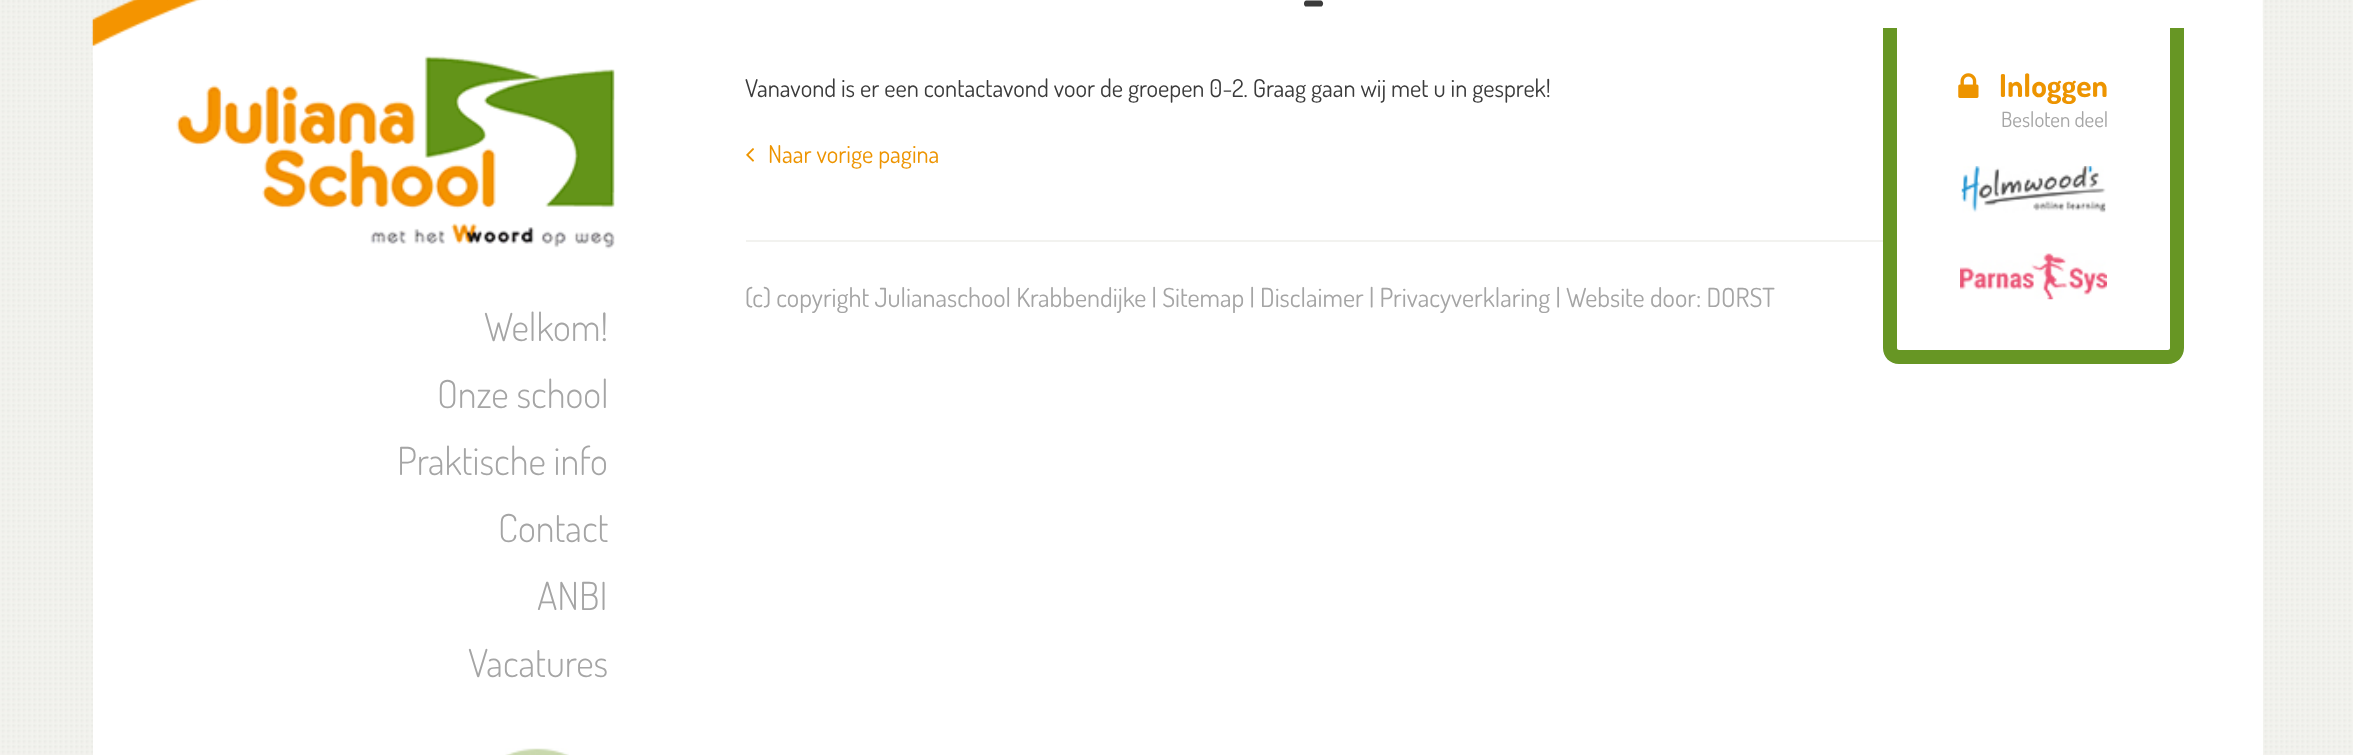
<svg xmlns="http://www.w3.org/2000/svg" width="2353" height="755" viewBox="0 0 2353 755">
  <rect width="100%" height="100%" fill="#fff"/>
  <image x="0" y="0" width="2353" height="755" href="img/1.png"/>
  <path d="M93 28h2170v727H93z" fill="#fff"/>
  <image x="746" y="148" width="8" height="14" href="img/2.png"/>
  <path d="M746 240h1137v2H746z" fill="#f2f2ef"/>
  <image x="178" y="0" width="2085" height="28" href="img/6.png"/>
  <image x="92" y="0" width="135" height="61" href="img/5.png"/>
  <image x="176" y="56" width="439" height="193" href="img/3.png"/>
  <image x="505" y="748" width="64" height="7" href="img/4.png"/>
  <path d="M1883 28H2184V348C2184 357 2177 364 2168 364H1899C1890 364 1883 357 1883 348ZM1897 28H2170V348C2170 349 2169 350 2168 350H1899C1898 350 1897 349 1897 348Z" fill="#679624" fill-rule="evenodd"/>
  <image x="1958" y="73" width="21" height="25" href="img/7.png"/>
  <image x="1961" y="166" width="145" height="47" href="img/8.png"/>
  <image x="1960" y="253" width="147" height="47" href="img/9.png"/>
  <text x="1302" y="17" font-family="Dosis" font-size="56" font-weight="bold" fill="#3b3b3b">-</text>
  <text x="745" y="97" font-family="Dosis" font-size="24.5" fill="#3b3b3b">Vanavond is er een contactavond voor de groepen 0-2. Graag gaan wij met u in gesprek!</text>
  <text x="768" y="163" font-family="Dosis" font-size="24.5" fill="#ed9400">Naar vorige pagina</text>
  <text x="745" y="307" font-family="Dosis" font-size="26.25" fill="#a5a5a5">(c) copyright Julianaschool Krabbendijke | Sitemap | Disclaimer | Privacyverklaring | Website door: DORST</text>
  <g font-family="Dosis" font-size="38.5" font-weight="300" fill="#a5a5a5">
    <text x="484" y="341">Welkom!</text>
    <text x="437" y="408">Onze school</text>
    <text x="397" y="475">Praktische info</text>
    <text x="498" y="542">Contact</text>
    <text x="537" y="610">ANBI</text>
    <text x="468" y="677">Vacatures</text>
  </g>
  <text x="1999" y="97" font-family="Dosis" font-size="31.5" font-weight="bold" fill="#ed9400">Inloggen</text>
  <text x="2001" y="127" font-family="Dosis" font-size="21" fill="#a5a5a5">Besloten deel</text>
</svg>
